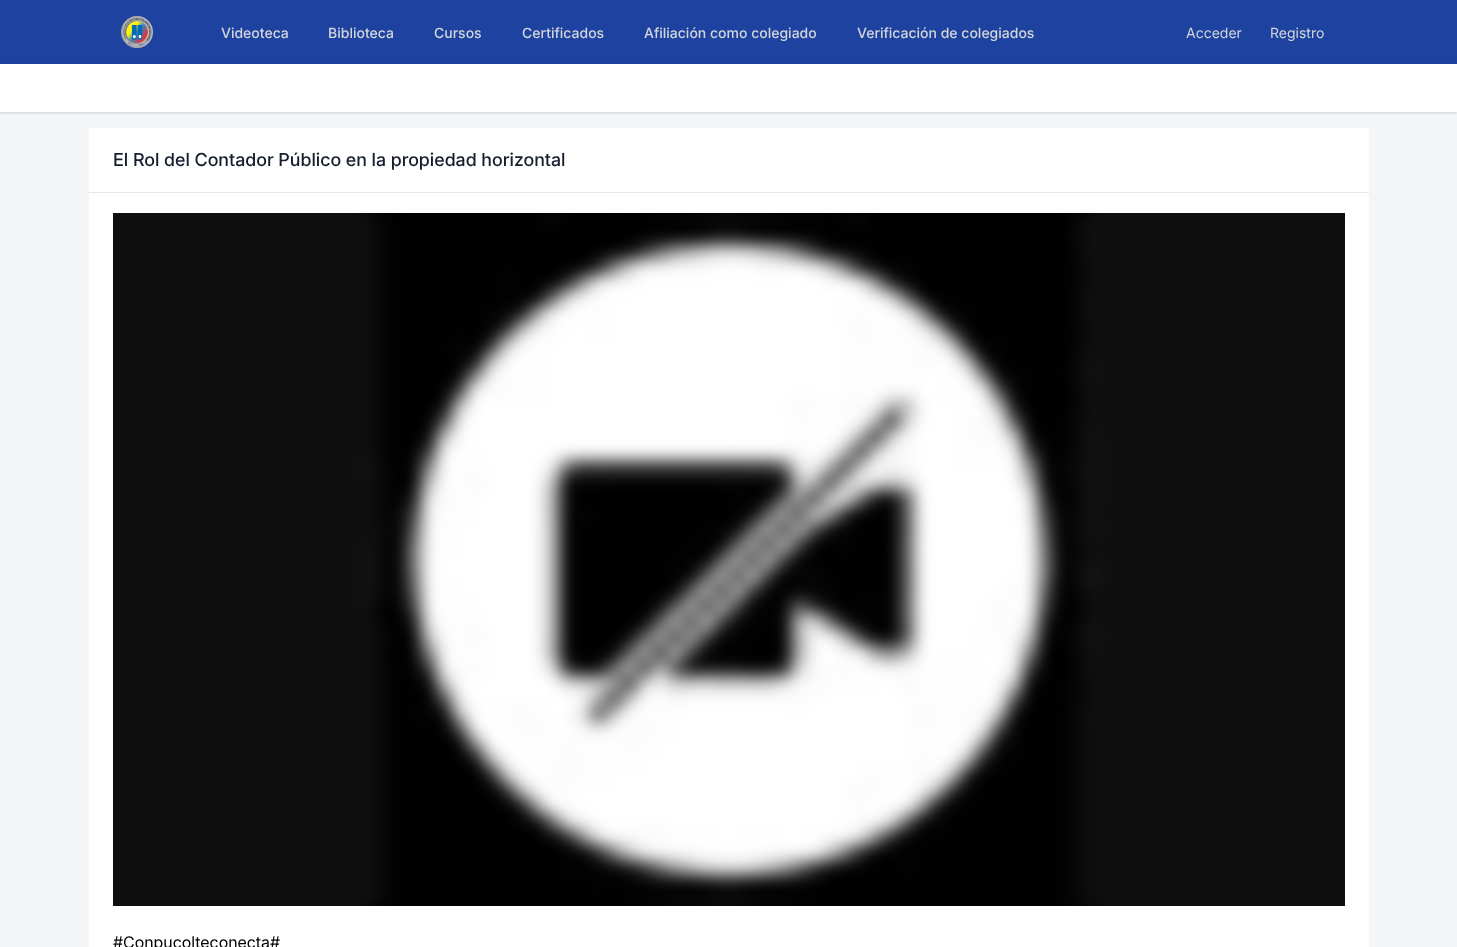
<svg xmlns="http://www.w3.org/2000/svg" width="1457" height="947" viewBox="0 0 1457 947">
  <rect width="100%" height="100%" fill="#f4f5f7"/>
  <path d="M0 0h1457v64H0z" fill="#1e429f"/>
  <image x="121" y="16" width="32" height="32" href="img/1.png"/>
  <path d="M0 65h1457v48H0z" fill="#0000000f" filter="blur(1px)"/>
  <path d="M0 65h1457v48H0z" fill="#0000001a" filter="blur(1.5px)"/>
  <path d="M0 64h1457v48H0z" fill="#fff"/>
  <path d="M89 128h1280v819H89z" fill="#fff"/>
  <path d="M89 192h1280v1H89z" fill="#e5e7eb"/>
  <image x="113" y="213" width="1232" height="693" href="img/2.png"/>
  <g font-family="Inter" font-size="14" font-weight="500" fill="#d2d6dc">
    <text x="221" y="38">Videoteca</text>
    <text x="328" y="38">Biblioteca</text>
    <text x="434" y="38">Cursos</text>
    <text x="522" y="38">Certificados</text>
    <text x="644" y="38">Afiliación como colegiado</text>
    <text x="857" y="38">Verificación de colegiados</text>
  </g>
  <g font-family="'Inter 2'" font-size="14" fill="#d2d6dc">
    <text x="1186" y="38">Acceder</text>
    <text x="1270" y="38">Registro</text>
  </g>
  <text x="113" y="166" font-family="'Inter 2'" font-size="18" font-weight="500" fill="#161e2e">El Rol del Contador Público en la propiedad horizontal</text>
  <text x="113" y="948" font-family="Inter" font-size="16" fill="#000">#Conpucolteconecta#</text>
</svg>
